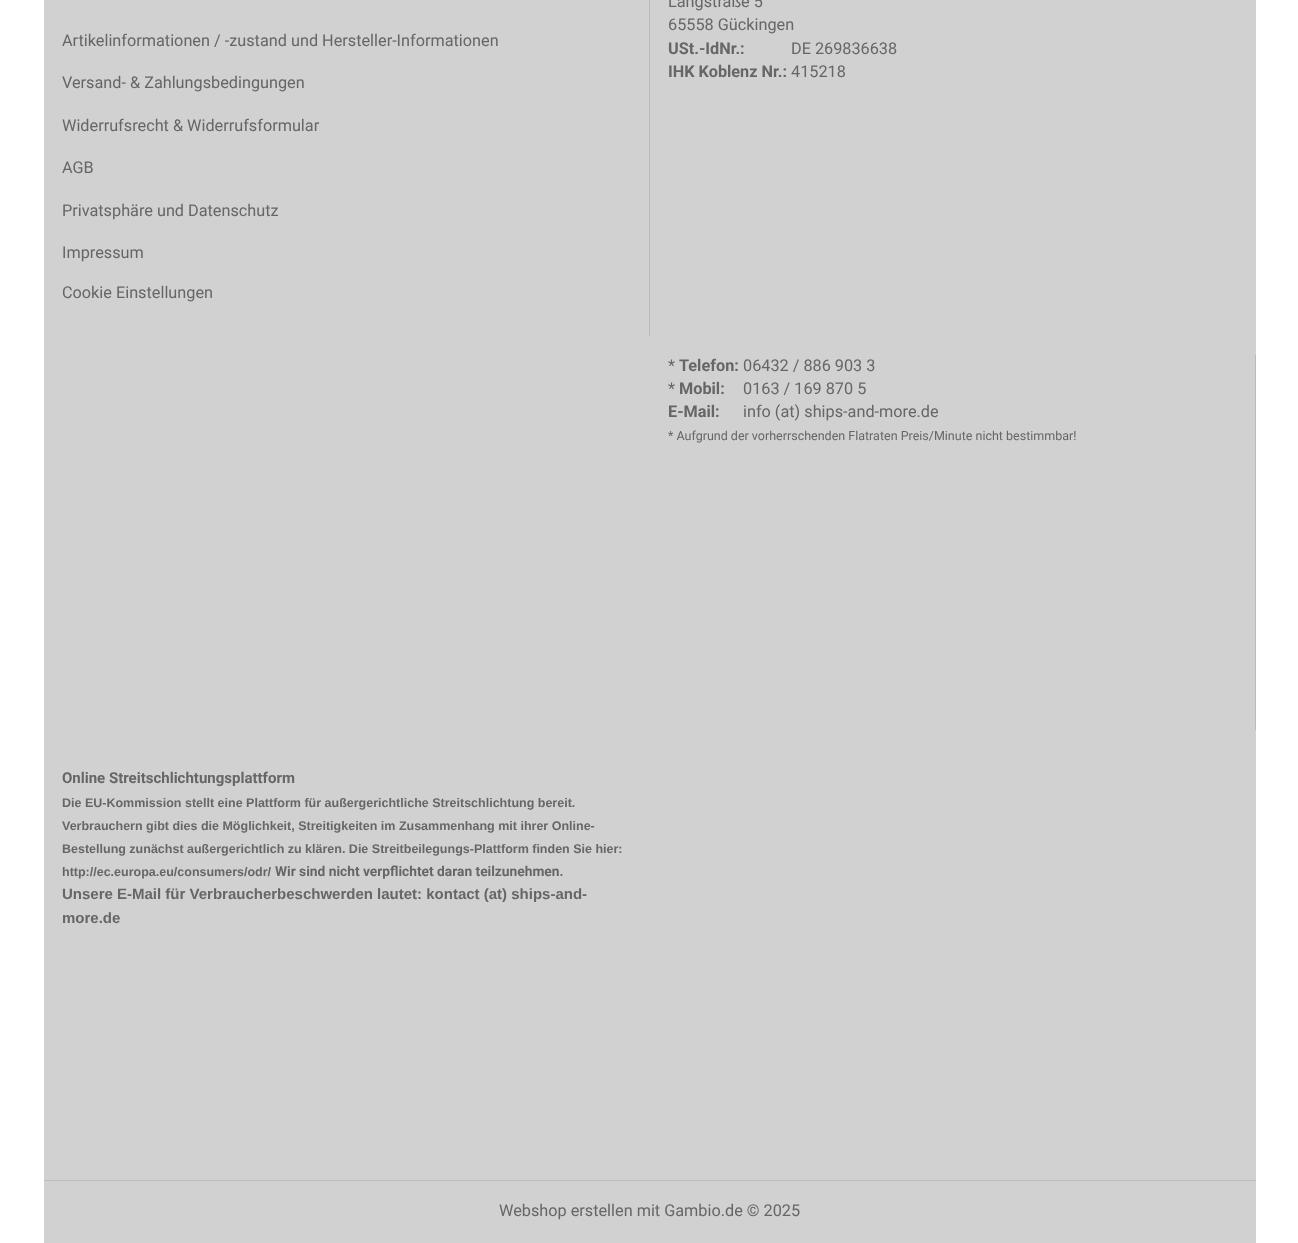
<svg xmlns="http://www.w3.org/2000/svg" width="1298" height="1243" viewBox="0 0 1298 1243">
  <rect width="100%" height="100%" fill="#fff"/>
  <path d="M44 0h1212v1243H44z" fill="#d1d1d1"/>
  <path d="M44 1180h1212v1H44z" fill="#bbb"/>
  <path d="M649 0h1v336H649z" fill="#bbb"/>
  <path d="M1255 355h1v375H1255z" fill="#bbb"/>
  <g font-family="Roboto" font-size="16.25" fill="#666">
    <text x="62" y="46">Artikelinformationen / -zustand und Hersteller-Informationen</text>
    <text x="62" y="88">Versand- &amp; Zahlungsbedingungen</text>
    <text x="62" y="131">Widerrufsrecht &amp; Widerrufsformular</text>
    <text x="62" y="173">AGB</text>
    <text x="62" y="216">Privatsphäre und Datenschutz</text>
    <text x="62" y="258">Impressum</text>
    <text x="62" y="298">Cookie Einstellungen</text>
    <text x="668" y="7">Langstraße 5</text>
    <text x="668" y="30">65558 Gückingen</text>
  </g>
  <text x="668" y="54" font-family="Roboto" font-size="16.25" font-weight="bold" fill="#666">USt.-IdNr.:</text>
  <text x="791" y="54" font-family="Roboto" font-size="16.25" fill="#666">DE 269836638</text>
  <text x="668" y="77" font-family="Roboto" font-size="16.25" font-weight="bold" fill="#666">IHK Koblenz Nr.:</text>
  <g font-family="Roboto" font-size="16.25" fill="#666">
    <text x="791" y="77">415218</text>
    <text x="668" y="371">*</text>
  </g>
  <text x="679" y="371" font-family="Roboto" font-size="16.25" font-weight="bold" fill="#666">Telefon:</text>
  <g font-family="Roboto" font-size="16.25" fill="#666">
    <text x="743" y="371">06432 / 886 903 3</text>
    <text x="668" y="394">*</text>
  </g>
  <text x="679" y="394" font-family="Roboto" font-size="16.25" font-weight="bold" fill="#666">Mobil:</text>
  <text x="743" y="394" font-family="Roboto" font-size="16.25" fill="#666">0163 / 169 870 5</text>
  <text x="668" y="417" font-family="Roboto" font-size="16.25" font-weight="bold" fill="#666">E-Mail:</text>
  <text x="743" y="417" font-family="Roboto" font-size="16.25" fill="#666">info (at) ships-and-more.de</text>
  <text x="668" y="440" font-family="Roboto" font-size="12.5" fill="#666">* Aufgrund der vorherrschenden Flatraten Preis/Minute nicht bestimmbar!</text>
  <text x="62" y="783" font-family="Roboto" font-size="15" font-weight="bold" fill="#666">Online Streitschlichtungsplattform</text>
  <g font-family="Liberation Sans" font-size="12.5" font-weight="bold" fill="#666">
    <text x="62" y="807">Die EU-Kommission stellt eine Plattform für außergerichtliche Streitschlichtung bereit.</text>
    <text x="62" y="830">Verbrauchern gibt dies die Möglichkeit, Streitigkeiten im Zusammenhang mit ihrer Online-</text>
    <text x="62" y="853">Bestellung zunächst außergerichtlich zu klären. Die Streitbeilegungs-Plattform finden Sie hier:</text>
    <text x="62" y="876">http://ec.europa.eu/consumers/odr/</text>
  </g>
  <text x="275" y="876" font-family="Roboto" font-size="13.75" font-weight="bold" fill="#666">Wir sind nicht verpflichtet daran teilzunehmen.</text>
  <g font-family="Liberation Sans" font-size="15" font-weight="bold" fill="#666">
    <text x="62" y="899">Unsere E-Mail für Verbraucherbeschwerden lautet: kontact (at) ships-and-</text>
    <text x="62" y="923">more.de</text>
  </g>
  <text x="499" y="1216" font-family="Roboto" font-size="16.25" fill="#666">Webshop erstellen mit Gambio.de © 2025</text>
</svg>
